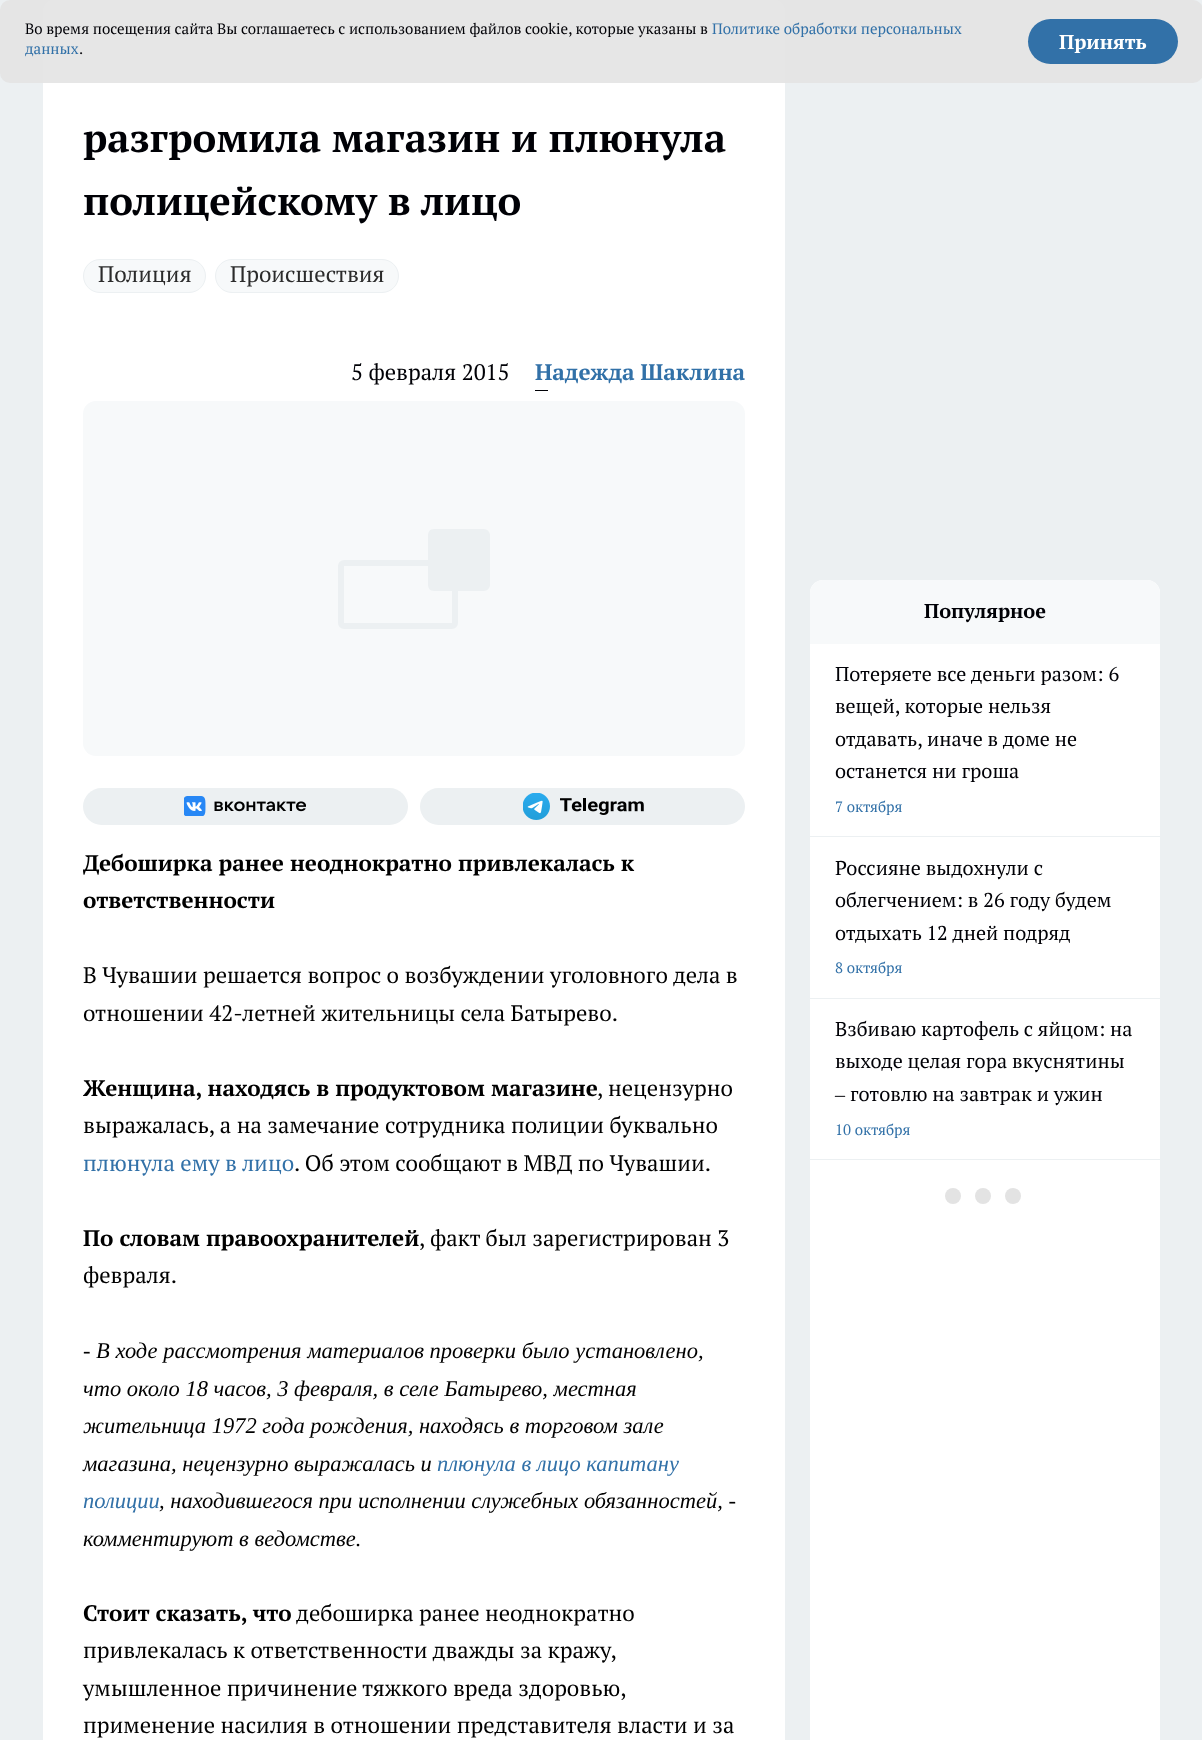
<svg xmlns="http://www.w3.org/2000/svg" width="1202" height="1740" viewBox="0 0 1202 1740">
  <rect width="100%" height="100%" fill="#ecf0f2"/>
  <rect x="43" y="-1" width="742" height="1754" rx="13" fill="#fff"/>
  <rect width="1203" height="83" rx="10" fill="#e3e3e3e8"/>
  <rect x="1028" y="19" width="150" height="45" rx="22.5" fill="#3271a8"/>
  <rect x="83.5" y="259.5" width="122" height="33" rx="16.5" fill="#f7f9fa" stroke="#ecf0f2"/>
  <rect x="215.5" y="259.5" width="183" height="33" rx="16.5" fill="#f7f9fa" stroke="#ecf0f2"/>
  <path d="M535 390h13v1H535z" fill="#000106"/>
  <rect x="83" y="401" width="662" height="355" rx="13" fill="#f7f9fa"/>
  <path d="M428 535C428 532 430 529 434 529H484C487 529 490 532 490 535V585C490 588 487 591 484 591H434C430 591 428 588 428 585Z" fill="#ecf0f2"/>
  <rect x="341" y="563" width="114" height="63" rx="3" fill="none" stroke="#ecf0f2" stroke-width="6"/>
  <rect x="83" y="788" width="325" height="37" rx="18.5" fill="#ecf0f2"/>
  <image x="184" y="796" width="122" height="20" href="img/1.png"/>
  <rect x="420" y="788" width="325" height="37" rx="18.5" fill="#ecf0f2"/>
  <image x="523" y="793" width="121" height="27" href="img/2.png"/>
  <rect x="810" y="580" width="350" height="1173" rx="13" fill="#fff"/>
  <path d="M823 580H1147C1154 580 1160 586 1160 593V644H810V593C810 586 816 580 823 580Z" fill="#f7f9fa"/>
  <path d="M810 836h350v1H810z" fill="#ecf0f2"/>
  <path d="M810 998h350v1H810z" fill="#ecf0f2"/>
  <path d="M810 1159h350v1H810z" fill="#ecf0f2"/>
  <circle cx="953" cy="1196" r="8" fill="#e3e3e3"/>
  <circle cx="983" cy="1196" r="8" fill="#e3e3e3"/>
  <circle cx="1013" cy="1196" r="8" fill="#e3e3e3"/>
  <text x="25" y="34" font-family="PT Serif" font-size="15" fill="#000106">Во время посещения сайта Вы соглашаетесь с использованием файлов cookie, которые указаны в</text>
  <g font-family="PT Serif" font-size="15" fill="#3271a8">
    <text x="712" y="34">Политике обработки персональных</text>
    <text x="25" y="54">данных</text>
  </g>
  <text x="79" y="54" font-family="PT Serif" font-size="15" fill="#000106">.</text>
  <text x="1059" y="49" font-family="PT Serif" font-size="20" font-weight="bold" fill="#fff">Принять</text>
  <g font-family="PT Serif" font-size="40" font-weight="bold" fill="#000106">
    <text x="83" y="152">разгромила магазин и плюнула</text>
    <text x="83" y="215">полицейскому в лицо</text>
  </g>
  <g font-family="PT Serif" font-size="22.5" fill="#2b2b2b">
    <text x="98" y="282">Полиция</text>
    <text x="230" y="282">Происшествия</text>
  </g>
  <text x="351" y="380" font-family="PT Serif" font-size="22.5" fill="#000106">5 февраля 2015</text>
  <text x="535" y="380" font-family="PT Serif" font-size="22.5" font-weight="bold" fill="#3271a8">Надежда Шаклина</text>
  <g font-family="PT Serif" font-size="22.5" font-weight="bold" fill="#000">
    <text x="83" y="871">Дебоширка ранее неоднократно привлекалась к</text>
    <text x="83" y="908">ответственности</text>
  </g>
  <g font-family="PT Serif" font-size="22.5" fill="#000">
    <text x="83" y="983">В Чувашии решается вопрос о возбуждении уголовного дела в</text>
    <text x="83" y="1021">отношении 42-летней жительницы села Батырево.</text>
  </g>
  <text x="83" y="1096" font-family="PT Serif" font-size="22.5" font-weight="bold" fill="#000">Женщина, находясь в продуктовом магазине</text>
  <g font-family="PT Serif" font-size="22.5" fill="#000">
    <text x="597" y="1096">, нецензурно</text>
    <text x="83" y="1133">выражалась, а на замечание сотрудника полиции буквально</text>
  </g>
  <text x="83" y="1171" font-family="PT Serif" font-size="22.5" fill="#3271a8">плюнула ему в лицо</text>
  <text x="294" y="1171" font-family="PT Serif" font-size="22.5" fill="#000">. Об этом сообщают в МВД по Чувашии.</text>
  <text x="83" y="1246" font-family="PT Serif" font-size="22.5" font-weight="bold" fill="#000">По словам правоохранителей</text>
  <g font-family="PT Serif" font-size="22.5" fill="#000">
    <text x="419" y="1246">, факт был зарегистрирован 3</text>
    <text x="83" y="1283">февраля.</text>
  </g>
  <g font-family="Liberation Serif" font-size="22.5" font-style="italic" fill="#000">
    <text x="83" y="1358">- В ходе рассмотрения материалов проверки было установлено,</text>
    <text x="83" y="1396">что около 18 часов, 3 февраля, в селе Батырево, местная</text>
    <text x="83" y="1433">жительница 1972 года рождения, находясь в торговом зале</text>
    <text x="83" y="1471">магазина, нецензурно выражалась и</text>
  </g>
  <g font-family="Liberation Serif" font-size="22.5" font-style="italic" fill="#3271a8">
    <text x="437" y="1471">плюнула в лицо капитану</text>
    <text x="83" y="1508">полиции</text>
  </g>
  <g font-family="Liberation Serif" font-size="22.5" font-style="italic" fill="#000">
    <text x="159" y="1508">, находившегося при исполнении служебных обязанностей, -</text>
    <text x="83" y="1546">комментируют в ведомстве.</text>
  </g>
  <text x="83" y="1621" font-family="PT Serif" font-size="22.5" font-weight="bold" fill="#000">Стоит сказать, что</text>
  <g font-family="PT Serif" font-size="22.5" fill="#000">
    <text x="296" y="1621">дебоширка ранее неоднократно</text>
    <text x="83" y="1658">привлекалась к ответственности дважды за кражу,</text>
    <text x="83" y="1696">умышленное причинение тяжкого вреда здоровью,</text>
    <text x="83" y="1733">применение насилия в отношении представителя власти и за</text>
  </g>
  <text x="924" y="618" font-family="PT Serif" font-size="20" font-weight="bold" fill="#000106">Популярное</text>
  <g font-family="PT Serif" font-size="20" fill="#000106">
    <text x="835" y="681">Потеряете все деньги разом: 6</text>
    <text x="835" y="713">вещей, которые нельзя</text>
    <text x="835" y="746">отдавать, иначе в доме не</text>
    <text x="835" y="778">останется ни гроша</text>
  </g>
  <text x="835" y="812" font-family="PT Serif" font-size="15" fill="#3271a8">7 октября</text>
  <g font-family="PT Serif" font-size="20" fill="#000106">
    <text x="835" y="875">Россияне выдохнули с</text>
    <text x="835" y="907">облегчением: в 26 году будем</text>
    <text x="835" y="940">отдыхать 12 дней подряд</text>
  </g>
  <text x="835" y="973" font-family="PT Serif" font-size="15" fill="#3271a8">8 октября</text>
  <g font-family="PT Serif" font-size="20" fill="#000106">
    <text x="835" y="1036">Взбиваю картофель с яйцом: на</text>
    <text x="835" y="1068">выходе целая гора вкуснятины</text>
  </g>
  <text x="835" y="1101" font-family="Liberation Serif" font-size="20" fill="#000106">–</text>
  <text x="850" y="1101" font-family="PT Serif" font-size="20" fill="#000106">готовлю на завтрак и ужин</text>
  <text x="835" y="1135" font-family="PT Serif" font-size="15" fill="#3271a8">10 октября</text>
</svg>
